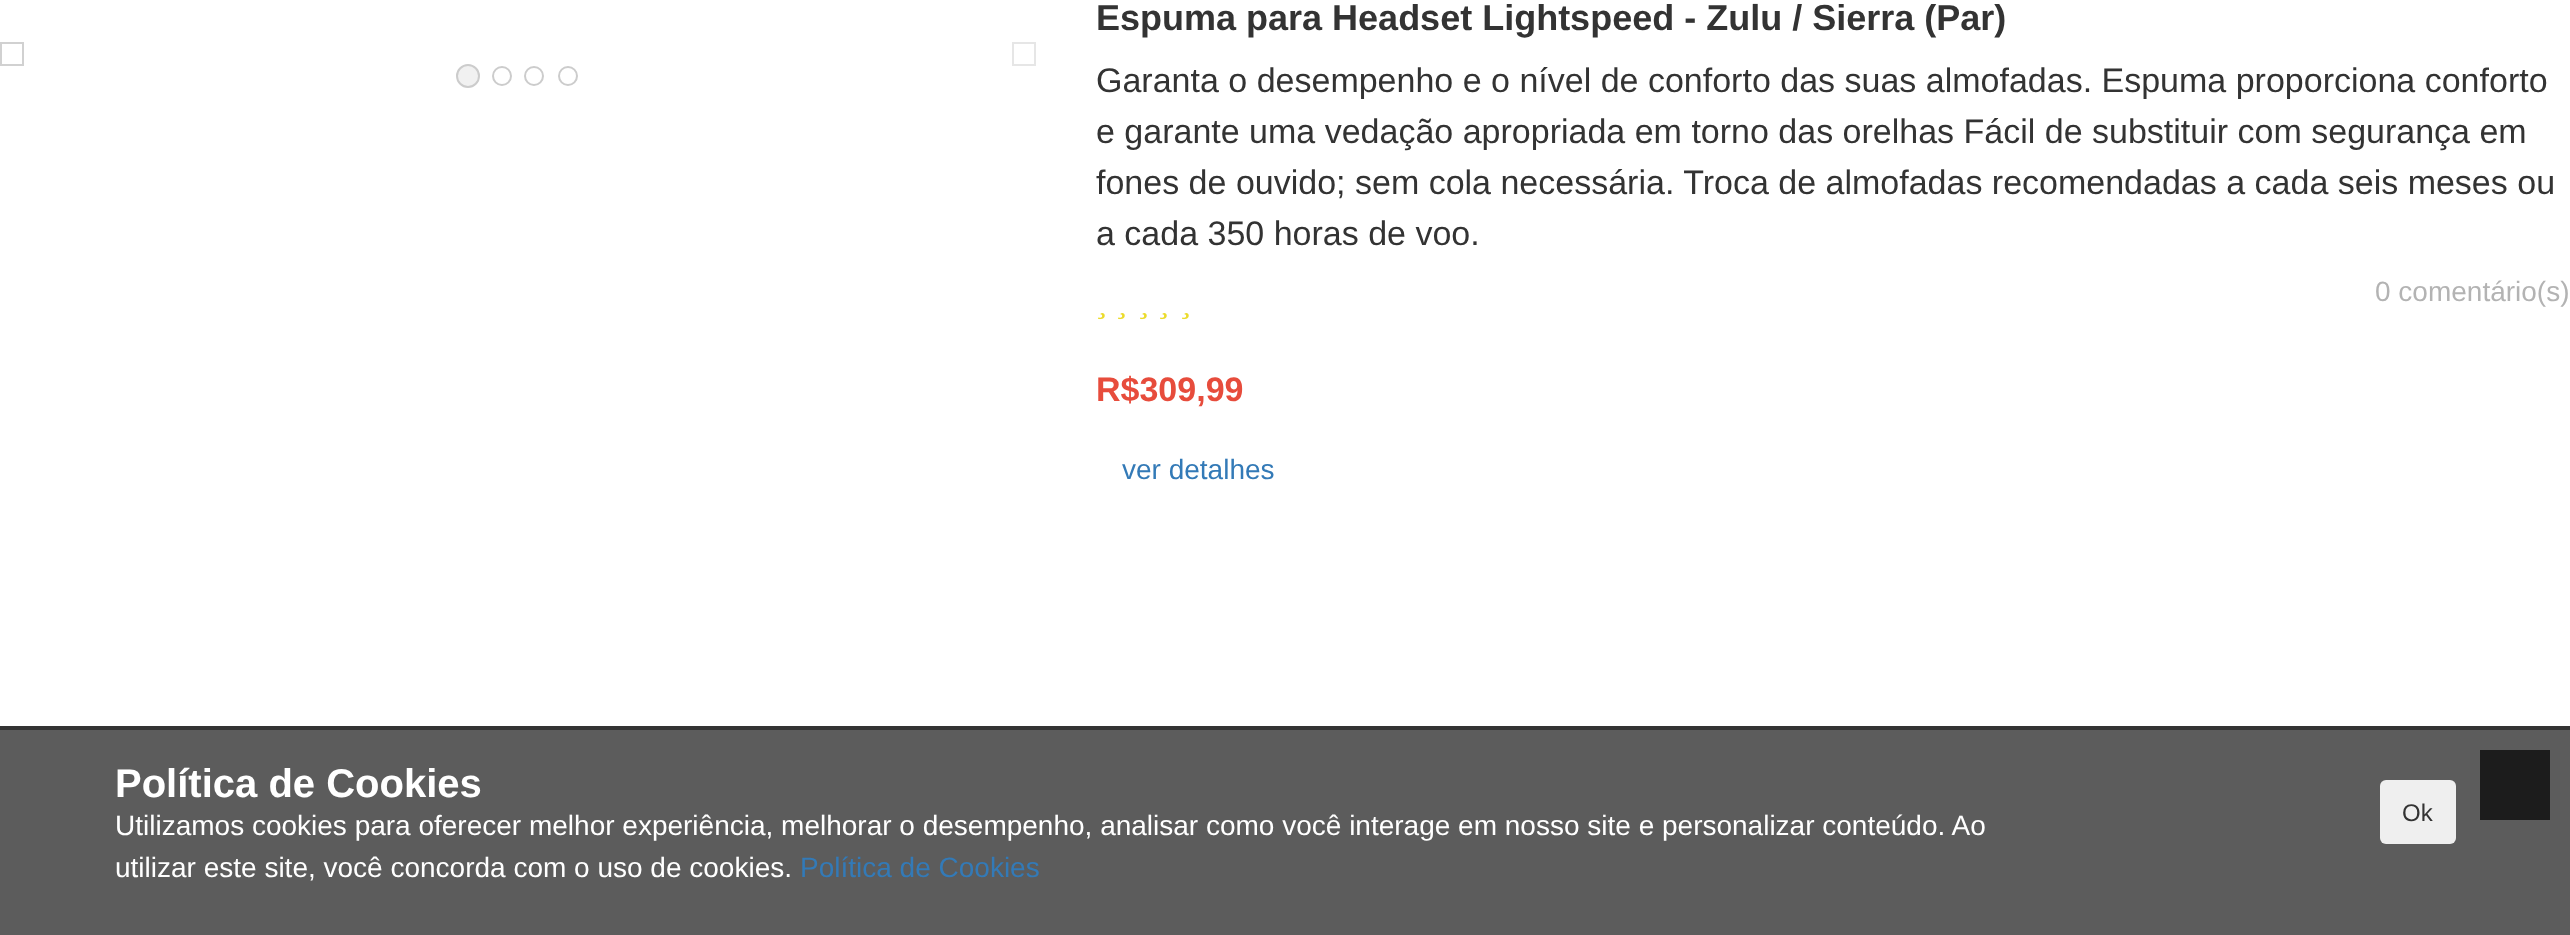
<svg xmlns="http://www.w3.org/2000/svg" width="2570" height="935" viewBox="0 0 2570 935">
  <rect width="100%" height="100%" fill="#fff"/>
  <path d="M1 43h22v22H1z" fill="none" stroke="#d1d1d1" stroke-width="2"/>
  <path d="M1013 43h22v22H1013z" fill="none" stroke="#e6e6e6" stroke-width="2"/>
  <circle cx="468" cy="76" r="11" fill="#f1f1f1" stroke="#ccc" stroke-width="2"/>
  <circle cx="502" cy="76" r="9" fill="none" stroke="#ccc" stroke-width="2"/>
  <circle cx="534" cy="76" r="9" fill="none" stroke="#ccc" stroke-width="2"/>
  <circle cx="568" cy="76" r="9" fill="none" stroke="#ccc" stroke-width="2"/>
  <image x="1098" y="313" width="7" height="7" href="img/1.png"/>
  <image x="1118" y="313" width="7" height="7" href="img/1.png"/>
  <image x="1140" y="313" width="7" height="7" href="img/1.png"/>
  <image x="1160" y="313" width="7" height="7" href="img/1.png"/>
  <image x="1182" y="313" width="7" height="7" href="img/1.png"/>
  <path d="M0 726h2570v4H0z" fill="#333"/>
  <path d="M0 730h2570v205H0z" fill="#5c5c5c"/>
  <rect x="2380" y="780" width="76" height="64" rx="6" fill="#efefef"/>
  <path d="M2480 750h70v70H2480z" fill="#1c1c1c"/>
  <text x="1096" y="30" font-family="Liberation Sans" font-size="36" font-weight="bold" fill="#333">Espuma para Headset Lightspeed - Zulu / Sierra (Par)</text>
  <g font-family="Liberation Sans" font-size="34" fill="#333">
    <text x="1096" y="92">Garanta o desempenho e o nível de conforto das suas almofadas. Espuma proporciona conforto</text>
    <text x="1096" y="143">e garante uma vedação apropriada em torno das orelhas Fácil de substituir com segurança em</text>
    <text x="1096" y="194">fones de ouvido; sem cola necessária. Troca de almofadas recomendadas a cada seis meses ou</text>
    <text x="1096" y="245">a cada 350 horas de voo.</text>
  </g>
  <text x="2375" y="301" font-family="Liberation Sans" font-size="28" fill="#b3b3b3">0 comentário(s)</text>
  <text x="1096" y="401" font-family="Liberation Sans" font-size="34" font-weight="bold" fill="#e74c3c">R$309,99</text>
  <text x="1122" y="479" font-family="Liberation Sans" font-size="28" fill="#337ab7">ver detalhes</text>
  <text x="115" y="797" font-family="Liberation Sans" font-size="40" font-weight="bold" fill="#fff">Política de Cookies</text>
  <g font-family="Liberation Sans" font-size="28" fill="#fff">
    <text x="115" y="835">Utilizamos cookies para oferecer melhor experiência, melhorar o desempenho, analisar como você interage em nosso site e personalizar conteúdo. Ao</text>
    <text x="115" y="877">utilizar este site, você concorda com o uso de cookies.</text>
  </g>
  <text x="800" y="877" font-family="Liberation Sans" font-size="28" fill="#337ab7">Política de Cookies</text>
  <text x="2402" y="821" font-family="Liberation Sans" font-size="24" fill="#333">Ok</text>
</svg>
